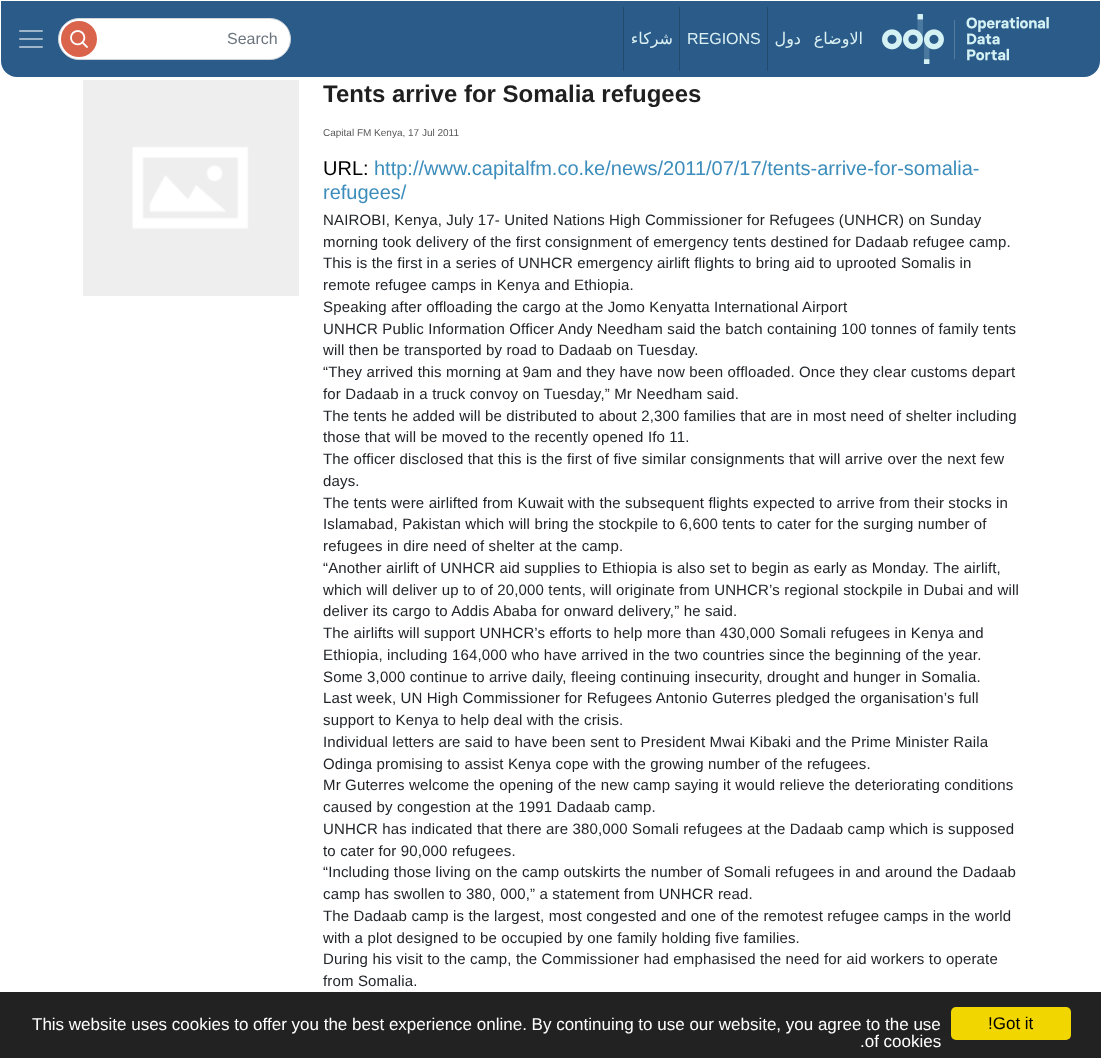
<svg xmlns="http://www.w3.org/2000/svg" width="1101" height="1058" viewBox="0 0 1101 1058">
  <rect width="100%" height="100%" fill="#fff"/>
  <path d="M2.5 2.5H1098.5V61C1098.5 69 1092 75.5 1084 75.5H17C9 75.5 2.5 69 2.5 61Z" fill="#2a5b89" stroke="#2a5b89" stroke-width="3"/>
  <image x="19" y="30" width="24" height="18" href="img/1.png"/>
  <rect x="58.5" y="18.5" width="232" height="41" rx="20.5" fill="#fff" stroke="#ced4da"/>
  <circle cx="79" cy="39" r="18" fill="#da634b"/>
  <image x="70" y="30" width="19" height="19" href="img/2.png"/>
  <path d="M623 7h1v64H623z" fill="#22496e"/>
  <path d="M679 7h1v64H679z" fill="#22496e"/>
  <path d="M767 7h1v64H767z" fill="#22496e"/>
  <image x="882" y="14" width="167" height="50" href="img/3.png"/>
  <image x="83" y="80" width="216" height="216" href="img/4.png"/>
  <path d="M0 992h1101v66H0z" fill="#222"/>
  <rect x="951" y="1007" width="120" height="33" rx="5" fill="#f1d600"/>
  <text x="227" y="44" font-family="Liberation Sans" font-size="16" fill="#6c757d">Search</text>
  <text x="673" y="44" font-family="DejaVu Sans" font-size="16" direction="rtl" fill="#daf0f3">شركاء</text>
  <text x="687" y="44" font-family="Liberation Sans" font-size="16" fill="#daf0f3">REGIONS</text>
  <g font-family="DejaVu Sans" font-size="16" direction="rtl" fill="#daf0f3">
    <text x="801" y="44">دول</text>
    <text x="863" y="44">الاوضاع</text>
  </g>
  <text x="323" y="102" font-family="Liberation Sans" font-size="24" font-weight="bold" fill="#1f1f1f">Tents arrive for Somalia refugees</text>
  <text x="323" y="136" font-family="Liberation Sans" font-size="10" fill="#585858">Capital FM Kenya, 17 Jul 2011</text>
  <text x="323" y="175" font-family="Liberation Sans" font-size="20" fill="#000">URL:</text>
  <g font-family="Liberation Sans" font-size="20" fill="#3c8dbc">
    <text x="374" y="175">http://www.capitalfm.co.ke/news/2011/07/17/tents-arrive-for-somalia-</text>
    <text x="323" y="199">refugees/</text>
  </g>
  <g font-family="Liberation Sans" font-size="15" letter-spacing="0.15" fill="#212529">
    <text x="323" y="225">NAIROBI, Kenya, July 17- United Nations High Commissioner for Refugees (UNHCR) on Sunday</text>
    <text x="323" y="247">morning took delivery of the first consignment of emergency tents destined for Dadaab refugee camp.</text>
    <text x="323" y="268">This is the first in a series of UNHCR emergency airlift flights to bring aid to uprooted Somalis in</text>
    <text x="323" y="290">remote refugee camps in Kenya and Ethiopia.</text>
    <text x="323" y="312">Speaking after offloading the cargo at the Jomo Kenyatta International Airport</text>
    <text x="323" y="334">UNHCR Public Information Officer Andy Needham said the batch containing 100 tonnes of family tents</text>
    <text x="323" y="355">will then be transported by road to Dadaab on Tuesday.</text>
    <text x="323" y="377">“They arrived this morning at 9am and they have now been offloaded. Once they clear customs depart</text>
    <text x="323" y="399">for Dadaab in a truck convoy on Tuesday,” Mr Needham said.</text>
    <text x="323" y="421">The tents he added will be distributed to about 2,300 families that are in most need of shelter including</text>
    <text x="323" y="442">those that will be moved to the recently opened Ifo 11.</text>
    <text x="323" y="464">The officer disclosed that this is the first of five similar consignments that will arrive over the next few</text>
    <text x="323" y="486">days.</text>
    <text x="323" y="508">The tents were airlifted from Kuwait with the subsequent flights expected to arrive from their stocks in</text>
    <text x="323" y="529">Islamabad, Pakistan which will bring the stockpile to 6,600 tents to cater for the surging number of</text>
    <text x="323" y="551">refugees in dire need of shelter at the camp.</text>
    <text x="323" y="573">“Another airlift of UNHCR aid supplies to Ethiopia is also set to begin as early as Monday. The airlift,</text>
    <text x="323" y="595">which will deliver up to of 20,000 tents, will originate from UNHCR’s regional stockpile in Dubai and will</text>
    <text x="323" y="616">deliver its cargo to Addis Ababa for onward delivery,” he said.</text>
    <text x="323" y="638">The airlifts will support UNHCR’s efforts to help more than 430,000 Somali refugees in Kenya and</text>
    <text x="323" y="660">Ethiopia, including 164,000 who have arrived in the two countries since the beginning of the year.</text>
    <text x="323" y="682">Some 3,000 continue to arrive daily, fleeing continuing insecurity, drought and hunger in Somalia.</text>
    <text x="323" y="703">Last week, UN High Commissioner for Refugees Antonio Guterres pledged the organisation’s full</text>
    <text x="323" y="725">support to Kenya to help deal with the crisis.</text>
    <text x="323" y="747">Individual letters are said to have been sent to President Mwai Kibaki and the Prime Minister Raila</text>
    <text x="323" y="769">Odinga promising to assist Kenya cope with the growing number of the refugees.</text>
    <text x="323" y="790">Mr Guterres welcome the opening of the new camp saying it would relieve the deteriorating conditions</text>
    <text x="323" y="812">caused by congestion at the 1991 Dadaab camp.</text>
    <text x="323" y="834">UNHCR has indicated that there are 380,000 Somali refugees at the Dadaab camp which is supposed</text>
    <text x="323" y="856">to cater for 90,000 refugees.</text>
    <text x="323" y="877">“Including those living on the camp outskirts the number of Somali refugees in and around the Dadaab</text>
    <text x="323" y="899">camp has swollen to 380, 000,” a statement from UNHCR read.</text>
    <text x="323" y="921">The Dadaab camp is the largest, most congested and one of the remotest refugee camps in the world</text>
    <text x="323" y="943">with a plot designed to be occupied by one family holding five families.</text>
    <text x="323" y="964">During his visit to the camp, the Commissioner had emphasised the need for aid workers to operate</text>
    <text x="323" y="986">from Somalia.</text>
  </g>
  <g font-family="Liberation Sans" font-size="17" fill="#fff">
    <text x="32" y="1030">This website uses cookies to offer you the best experience online. By continuing to use our website, you agree to the use</text>
    <text x="860" y="1047">.of cookies</text>
  </g>
  <text x="988" y="1029" font-family="Liberation Sans" font-size="17" fill="#000">!Got it</text>
</svg>
